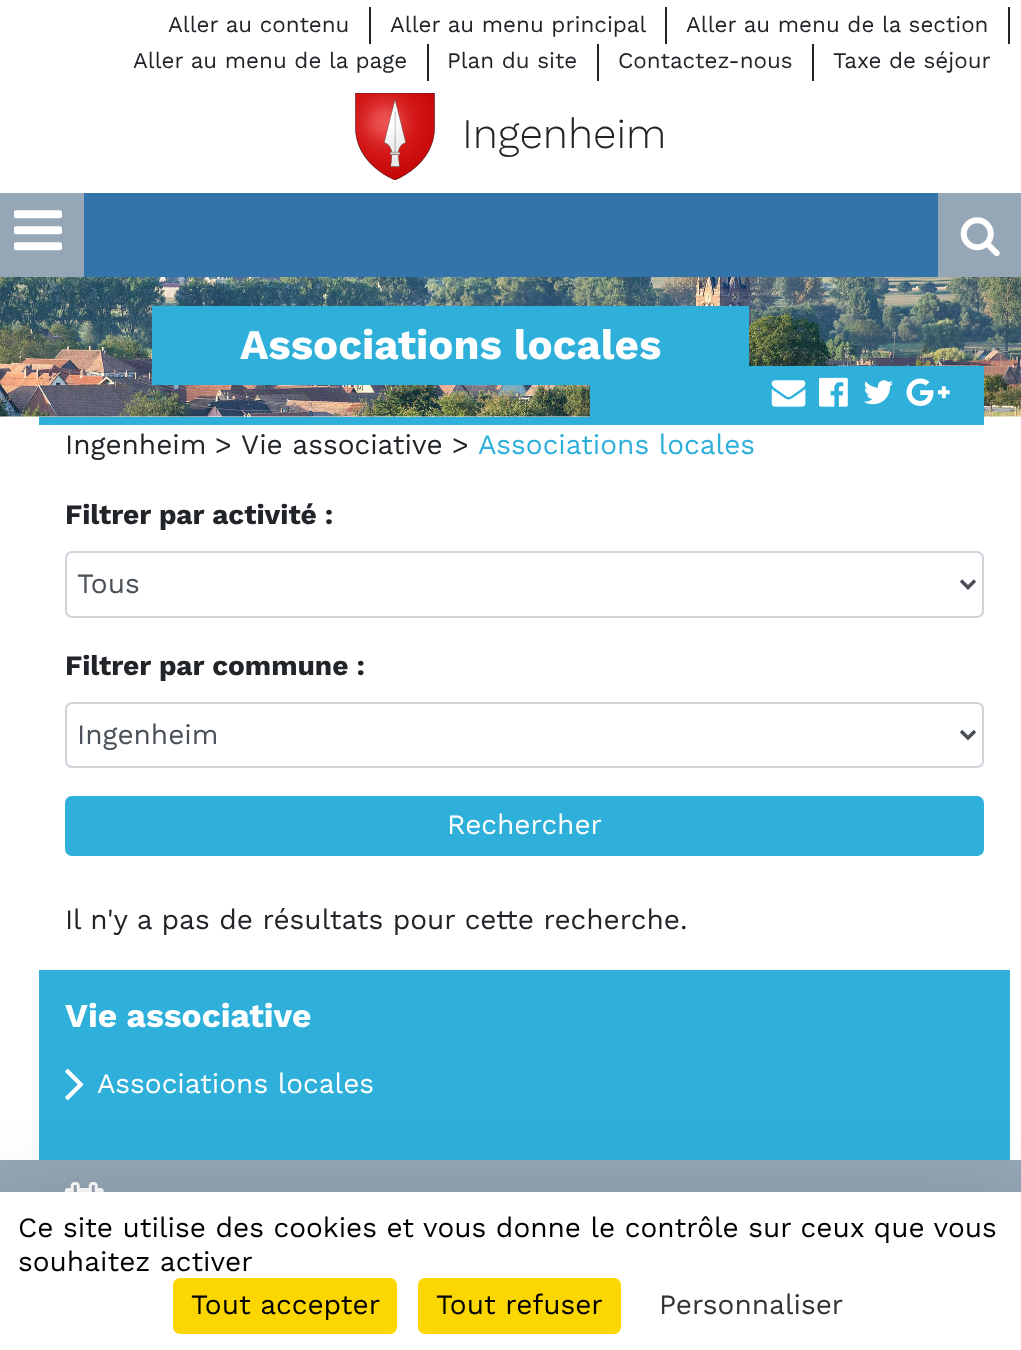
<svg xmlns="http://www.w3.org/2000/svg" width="1021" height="1350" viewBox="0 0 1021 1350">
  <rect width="100%" height="100%" fill="#fff"/>
  <path d="M369 7h2v37H369z" fill="#212529"/>
  <path d="M665 7h2v37H665z" fill="#212529"/>
  <path d="M1008 7h2v37H1008z" fill="#212529"/>
  <path d="M427 44h2v37H427z" fill="#212529"/>
  <path d="M597 44h2v37H597z" fill="#212529"/>
  <path d="M812 44h2v37H812z" fill="#212529"/>
  <image x="355" y="93" width="80" height="87" href="img/1.png"/>
  <path d="M84 193h854v84H84z" fill="#3374aa"/>
  <path d="M0 193h84v84H0z" fill="#95a6b6"/>
  <image x="14" y="210" width="48" height="41" href="img/2.png"/>
  <path d="M938 193h83v84H938z" fill="#95a6b6"/>
  <image x="960" y="217" width="40" height="40" href="img/3.png"/>
  <image x="0" y="277" width="1021" height="140" href="img/4.png"/>
  <path d="M152 306h597v79H152z" fill="#2eb0db"/>
  <path d="M39 417h945v8H39z" fill="#2eb0db"/>
  <path d="M590 366h394v51H590z" fill="#2eb0db"/>
  <image x="771" y="380" width="35" height="27" href="img/5.png"/>
  <image x="819" y="377" width="29" height="30" href="img/6.png"/>
  <image x="863" y="380" width="30" height="25" href="img/7.png"/>
  <image x="906" y="378" width="44" height="28" href="img/8.png"/>
  <rect x="66" y="552" width="917" height="65" rx="6" fill="none" stroke="#ced4da" stroke-width="2"/>
  <path d="M961 580.5L968 587.5L975 580.5" fill="none" stroke="#495057" stroke-width="3.5"/>
  <rect x="66" y="703" width="917" height="64" rx="6" fill="none" stroke="#ced4da" stroke-width="2"/>
  <path d="M961 731L968 738L975 731" fill="none" stroke="#495057" stroke-width="3.5"/>
  <rect x="65" y="796" width="919" height="60" rx="7" fill="#2eb0db"/>
  <path d="M39 970h971v190H39z" fill="#2eb0db"/>
  <image x="65" y="1068" width="19" height="33" href="img/9.png"/>
  <path d="M0 1160h1021v32H0z" fill="#95a6b6"/>
  <image x="64" y="1182" width="40" height="10" href="img/10.png"/>
  <path d="M0 1227h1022v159H0z" fill="#00000040" filter="blur(52.5px)"/>
  <path d="M0 1192h1021v158H0z" fill="#fff"/>
  <rect x="173" y="1278" width="224" height="56" rx="7" fill="#fbd600"/>
  <rect x="418" y="1278" width="203" height="56" rx="7" fill="#fbd600"/>
  <g font-family="Work Sans" font-size="22.4" fill="#212529">
    <text x="168" y="32">Aller au contenu</text>
    <text x="390" y="32">Aller au menu principal</text>
    <text x="686" y="32">Aller au menu de la section</text>
    <text x="133" y="68">Aller au menu de la page</text>
    <text x="447" y="68">Plan du site</text>
    <text x="618" y="68">Contactez-nous</text>
    <text x="833" y="68">Taxe de séjour</text>
  </g>
  <text x="462" y="148" font-family="Work Sans" font-size="42" font-weight="300" fill="#212529">Ingenheim</text>
  <text x="240" y="359" font-family="Work Sans" font-size="42" font-weight="bold" fill="#fff">Associations locales</text>
  <g font-family="Work Sans" font-size="28" fill="#212529">
    <text x="65" y="454">Ingenheim</text>
    <text x="215" y="454">&gt;</text>
    <text x="241" y="454">Vie associative</text>
    <text x="452" y="454">&gt;</text>
  </g>
  <text x="478" y="454" font-family="Work Sans" font-size="28" fill="#2eb0db">Associations locales</text>
  <text x="65" y="524" font-family="Work Sans" font-size="28" font-weight="bold" fill="#212529">Filtrer par activité :</text>
  <text x="77" y="593" font-family="Work Sans" font-size="28" fill="#495057">Tous</text>
  <text x="65" y="675" font-family="Work Sans" font-size="28" font-weight="bold" fill="#212529">Filtrer par commune :</text>
  <text x="77" y="744" font-family="Work Sans" font-size="28" fill="#495057">Ingenheim</text>
  <text x="447" y="834" font-family="Work Sans" font-size="28" fill="#fff">Rechercher</text>
  <text x="65" y="929" font-family="Work Sans" font-size="28" fill="#212529">Il n'y a pas de résultats pour cette recherche.</text>
  <text x="65" y="1027" font-family="Work Sans" font-size="33.5" font-weight="bold" fill="#fff">Vie associative</text>
  <text x="97" y="1093" font-family="Work Sans" font-size="28" fill="#fff">Associations locales</text>
  <g font-family="Work Sans" font-size="28" fill="#000">
    <text x="18" y="1237">Ce site utilise des cookies et vous donne le contrôle sur ceux que vous</text>
    <text x="18" y="1271">souhaitez activer</text>
    <text x="191" y="1314">Tout accepter</text>
    <text x="436" y="1314">Tout refuser</text>
  </g>
  <text x="659" y="1314" font-family="Work Sans" font-size="28" fill="#333">Personnaliser</text>
</svg>
